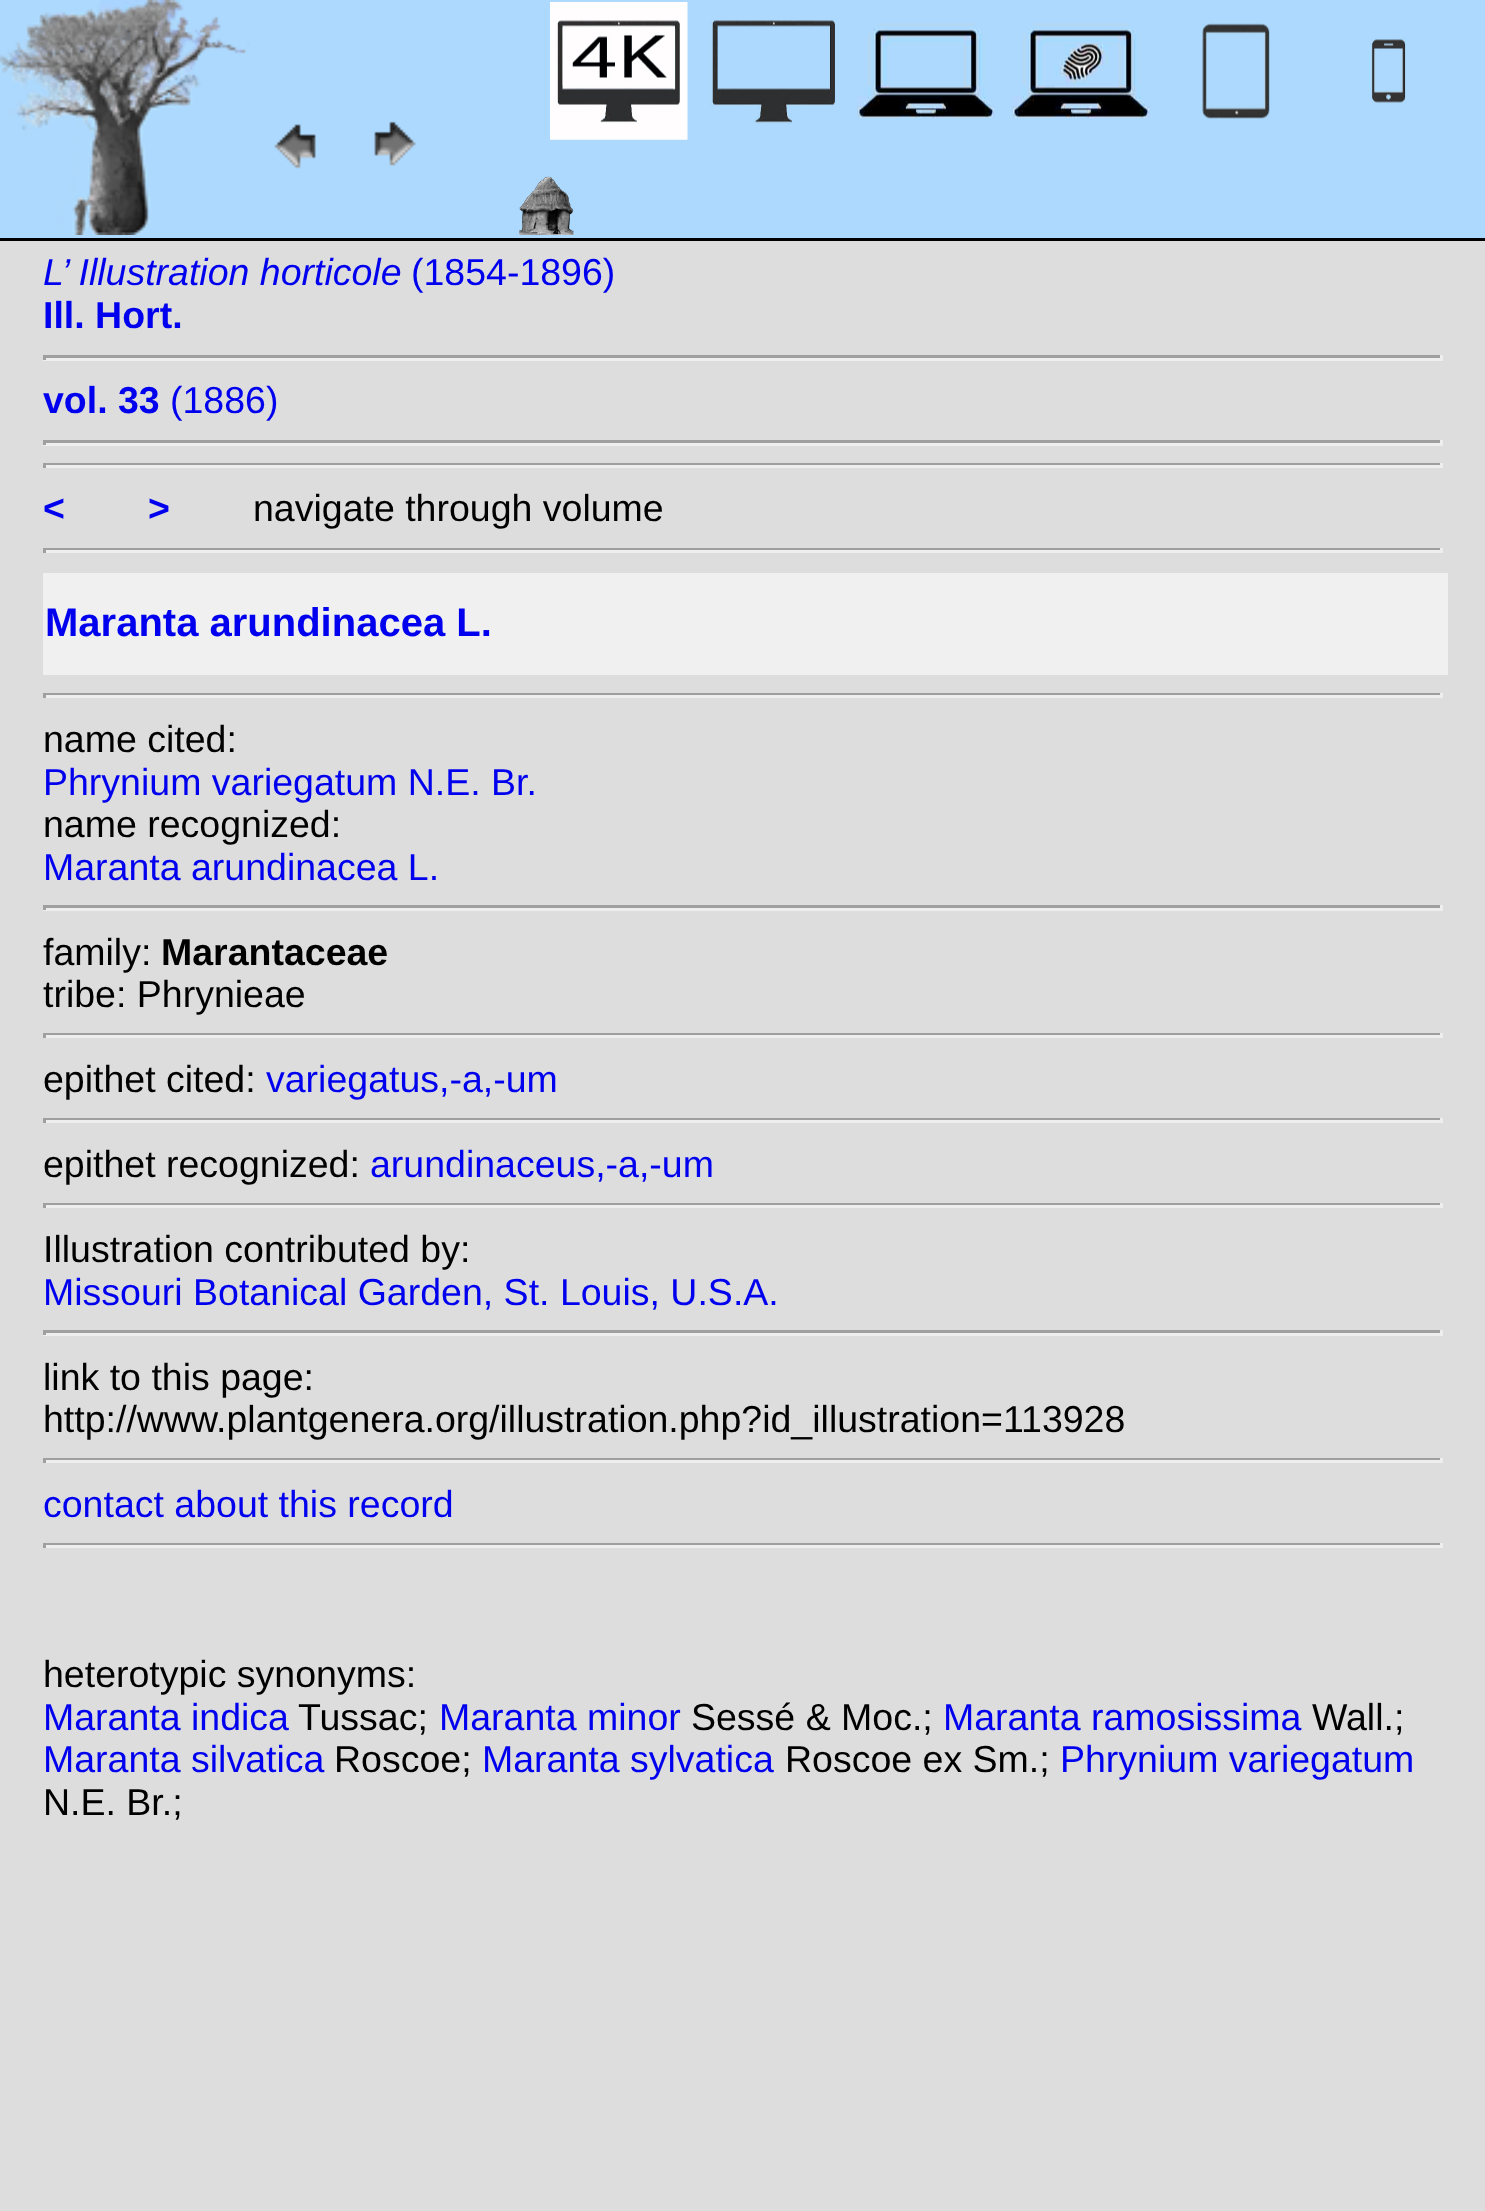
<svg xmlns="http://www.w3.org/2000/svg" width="1485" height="2211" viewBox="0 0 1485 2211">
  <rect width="100%" height="100%" fill="#ddd"/>
  <path d="M0 0h1485v238H0z" fill="#add9fe"/>
  <path d="M0 238h1485v3H0z" fill="#000"/>
  <image x="0" y="0" width="250" height="235" href="img/1.png"/>
  <image x="274" y="124" width="42" height="45" href="img/2.png"/>
  <image x="374" y="121" width="42" height="45" href="img/3.png"/>
  <image x="550" y="2" width="138" height="138" href="img/4.png"/>
  <image x="709" y="20" width="127" height="104" href="img/5.png"/>
  <image x="857" y="23" width="138" height="95" href="img/6.png"/>
  <image x="1012" y="23" width="138" height="95" href="img/7.png"/>
  <image x="1202" y="23" width="68" height="96" href="img/8.png"/>
  <image x="1369" y="38" width="37" height="65" href="img/9.png"/>
  <image x="519" y="176" width="55" height="59" href="img/10.png"/>
  <path d="M43 355h1400v3H43z" fill="#9f9f9f"/>
  <path d="M1440 355h3v5H1440z" fill="#eee"/>
  <path d="M43 358h1400v3H43z" fill="#eee"/>
  <path d="M43 355h3v5H43z" fill="#9f9f9f"/>
  <path d="M43 440h1400v3H43z" fill="#9f9f9f"/>
  <path d="M1440 440h3v5H1440z" fill="#eee"/>
  <path d="M43 443h1400v3H43z" fill="#eee"/>
  <path d="M43 440h3v5H43z" fill="#9f9f9f"/>
  <path d="M43 463h1400v2H43z" fill="#9f9f9f"/>
  <path d="M1440 463h3v5H1440z" fill="#eee"/>
  <path d="M43 465h1400v3H43z" fill="#eee"/>
  <path d="M43 463h3v5H43z" fill="#9f9f9f"/>
  <path d="M43 548h1400v2H43z" fill="#9f9f9f"/>
  <path d="M1440 548h3v5H1440z" fill="#eee"/>
  <path d="M43 550h1400v3H43z" fill="#eee"/>
  <path d="M43 548h3v5H43z" fill="#9f9f9f"/>
  <path d="M43 573h1405v102H43z" fill="#f0f0f0"/>
  <path d="M43 693h1400v2H43z" fill="#9f9f9f"/>
  <path d="M1440 693h3v5H1440z" fill="#eee"/>
  <path d="M43 695h1400v3H43z" fill="#eee"/>
  <path d="M43 693h3v5H43z" fill="#9f9f9f"/>
  <path d="M43 905h1400v3H43z" fill="#9f9f9f"/>
  <path d="M1440 905h3v5H1440z" fill="#eee"/>
  <path d="M43 908h1400v3H43z" fill="#eee"/>
  <path d="M43 905h3v5H43z" fill="#9f9f9f"/>
  <path d="M43 1033h1400v2H43z" fill="#9f9f9f"/>
  <path d="M1440 1033h3v5H1440z" fill="#eee"/>
  <path d="M43 1035h1400v3H43z" fill="#eee"/>
  <path d="M43 1033h3v5H43z" fill="#9f9f9f"/>
  <path d="M43 1118h1400v2H43z" fill="#9f9f9f"/>
  <path d="M1440 1118h3v5H1440z" fill="#eee"/>
  <path d="M43 1120h1400v3H43z" fill="#eee"/>
  <path d="M43 1118h3v5H43z" fill="#9f9f9f"/>
  <path d="M43 1203h1400v2H43z" fill="#9f9f9f"/>
  <path d="M1440 1203h3v5H1440z" fill="#eee"/>
  <path d="M43 1205h1400v3H43z" fill="#eee"/>
  <path d="M43 1203h3v5H43z" fill="#9f9f9f"/>
  <path d="M43 1330h1400v3H43z" fill="#9f9f9f"/>
  <path d="M1440 1330h3v5H1440z" fill="#eee"/>
  <path d="M43 1333h1400v3H43z" fill="#eee"/>
  <path d="M43 1330h3v5H43z" fill="#9f9f9f"/>
  <path d="M43 1458h1400v2H43z" fill="#9f9f9f"/>
  <path d="M1440 1458h3v5H1440z" fill="#eee"/>
  <path d="M43 1460h1400v3H43z" fill="#eee"/>
  <path d="M43 1458h3v5H43z" fill="#9f9f9f"/>
  <path d="M43 1543h1400v2H43z" fill="#9f9f9f"/>
  <path d="M1440 1543h3v5H1440z" fill="#eee"/>
  <path d="M43 1545h1400v3H43z" fill="#eee"/>
  <path d="M43 1543h3v5H43z" fill="#9f9f9f"/>
  <text x="43" y="285" font-family="Liberation Sans" font-size="37.5" font-style="italic" fill="#00e">L’ Illustration horticole</text>
  <text x="411" y="285" font-family="Liberation Sans" font-size="37.5" fill="#00e">(1854-1896)</text>
  <g font-family="Liberation Sans" font-size="37.5" font-weight="bold" fill="#00e">
    <text x="43" y="328">Ill. Hort.</text>
    <text x="43" y="413">vol. 33</text>
  </g>
  <text x="170" y="413" font-family="Liberation Sans" font-size="37.5" fill="#00e">(1886)</text>
  <g font-family="Liberation Sans" font-size="37.5" font-weight="bold" fill="#00e">
    <text x="43" y="521">&lt;</text>
    <text x="148" y="521">&gt;</text>
  </g>
  <text x="253" y="521" font-family="Liberation Sans" font-size="37.5" fill="#000">navigate through volume</text>
  <text x="45" y="636" font-family="Liberation Sans" font-size="40" font-weight="bold" fill="#00e">Maranta arundinacea L.</text>
  <text x="43" y="752" font-family="Liberation Sans" font-size="37.5" fill="#000">name cited:</text>
  <text x="43" y="795" font-family="Liberation Sans" font-size="37.5" fill="#00e">Phrynium variegatum N.E. Br.</text>
  <text x="43" y="837" font-family="Liberation Sans" font-size="37.5" fill="#000">name recognized:</text>
  <text x="43" y="880" font-family="Liberation Sans" font-size="37.5" fill="#00e">Maranta arundinacea L.</text>
  <text x="43" y="965" font-family="Liberation Sans" font-size="37.5" fill="#000">family:</text>
  <text x="161" y="965" font-family="Liberation Sans" font-size="37.5" font-weight="bold" fill="#000">Marantaceae</text>
  <g font-family="Liberation Sans" font-size="37.5" fill="#000">
    <text x="43" y="1007">tribe: Phrynieae</text>
    <text x="43" y="1092">epithet cited:</text>
  </g>
  <text x="266" y="1092" font-family="Liberation Sans" font-size="37.5" fill="#00e">variegatus,-a,-um</text>
  <text x="43" y="1177" font-family="Liberation Sans" font-size="37.5" fill="#000">epithet recognized:</text>
  <text x="370" y="1177" font-family="Liberation Sans" font-size="37.5" fill="#00e">arundinaceus,-a,-um</text>
  <text x="43" y="1262" font-family="Liberation Sans" font-size="37.5" fill="#000">Illustration contributed by:</text>
  <text x="43" y="1305" font-family="Liberation Sans" font-size="37.5" fill="#00e">Missouri Botanical Garden, St. Louis, U.S.A.</text>
  <g font-family="Liberation Sans" font-size="37.5" fill="#000">
    <text x="43" y="1390">link to this page:</text>
    <text x="43" y="1432">http://www.plantgenera.org/illustration.php?id_illustration=113928</text>
  </g>
  <text x="43" y="1517" font-family="Liberation Sans" font-size="37.5" fill="#00e">contact about this record</text>
  <text x="43" y="1687" font-family="Liberation Sans" font-size="37.5" fill="#000">heterotypic synonyms:</text>
  <text x="43" y="1730" font-family="Liberation Sans" font-size="37.5" fill="#00e">Maranta indica</text>
  <text x="298" y="1730" font-family="Liberation Sans" font-size="37.5" fill="#000">Tussac;</text>
  <text x="439" y="1730" font-family="Liberation Sans" font-size="37.5" fill="#00e">Maranta minor</text>
  <text x="691" y="1730" font-family="Liberation Sans" font-size="37.5" fill="#000">Sessé &amp; Moc.;</text>
  <text x="943" y="1730" font-family="Liberation Sans" font-size="37.5" fill="#00e">Maranta ramosissima</text>
  <text x="1312" y="1730" font-family="Liberation Sans" font-size="37.5" fill="#000">Wall.;</text>
  <text x="43" y="1772" font-family="Liberation Sans" font-size="37.5" fill="#00e">Maranta silvatica</text>
  <text x="334" y="1772" font-family="Liberation Sans" font-size="37.5" fill="#000">Roscoe;</text>
  <text x="482" y="1772" font-family="Liberation Sans" font-size="37.5" fill="#00e">Maranta sylvatica</text>
  <text x="785" y="1772" font-family="Liberation Sans" font-size="37.5" fill="#000">Roscoe ex Sm.;</text>
  <text x="1060" y="1772" font-family="Liberation Sans" font-size="37.5" fill="#00e">Phrynium variegatum</text>
  <text x="43" y="1815" font-family="Liberation Sans" font-size="37.5" fill="#000">N.E. Br.;</text>
</svg>
